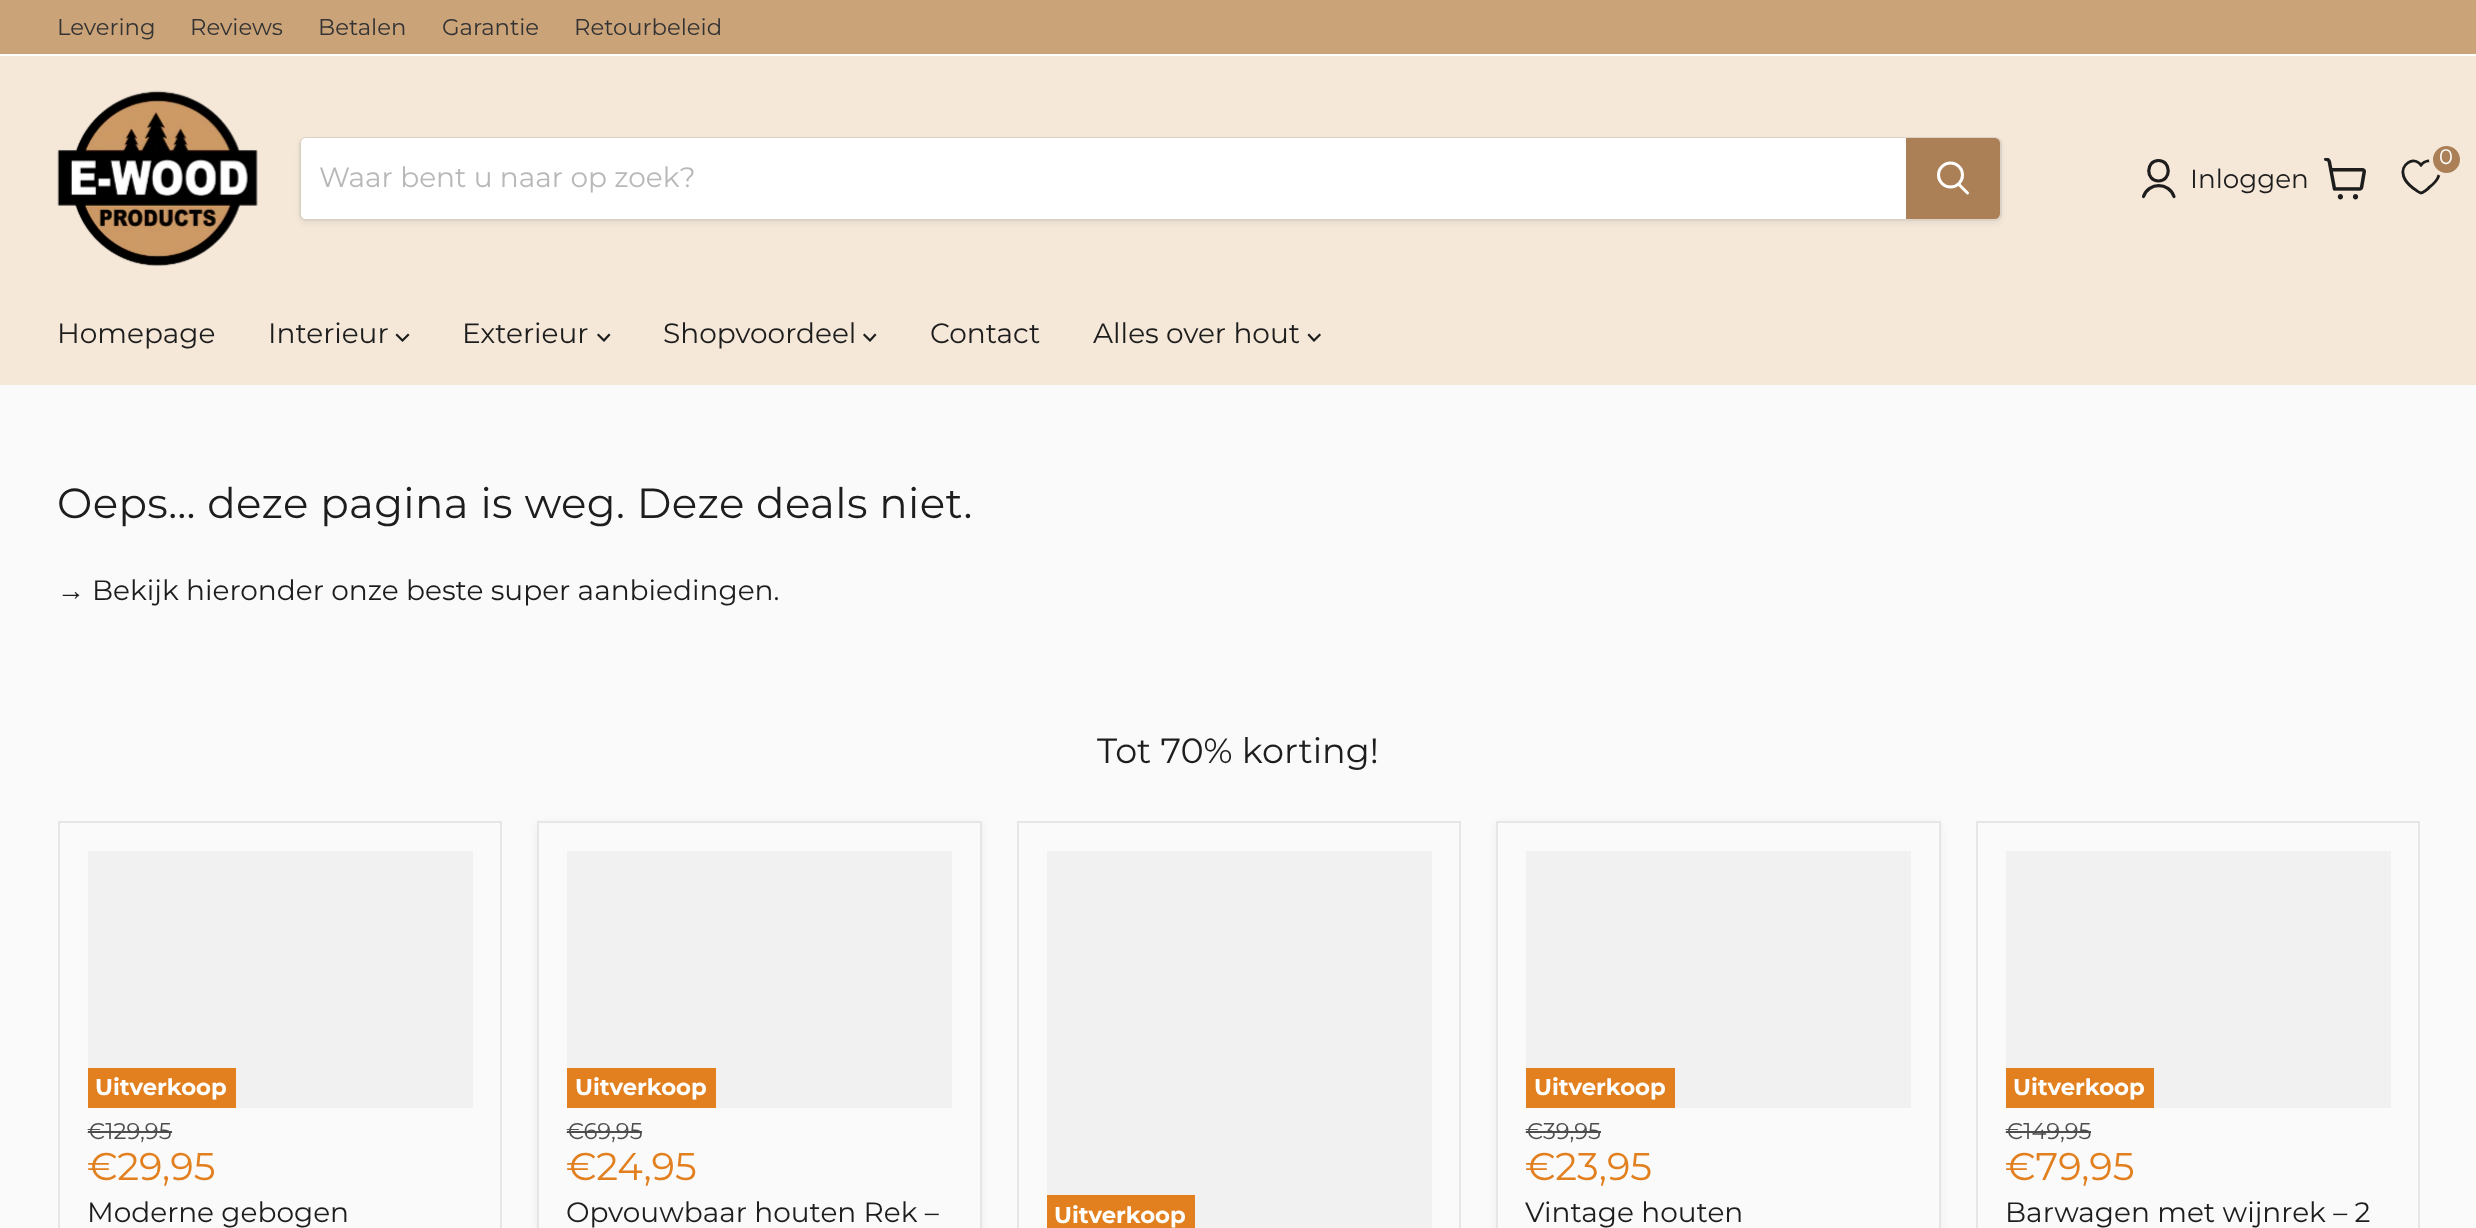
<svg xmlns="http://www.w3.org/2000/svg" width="2476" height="1228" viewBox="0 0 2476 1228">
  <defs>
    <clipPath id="clip1"><path d="M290 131H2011V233H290ZM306 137H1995C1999 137 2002 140 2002 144V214C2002 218 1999 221 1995 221H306C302 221 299 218 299 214V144C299 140 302 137 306 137Z" clip-rule="evenodd"/></clipPath>
  </defs>
  <rect width="100%" height="100%" fill="#fafafa"/>
  <path d="M0 0h2476v54H0z" fill="#cba379"/>
  <path d="M0 54h2476v2H0z" fill="#fff"/>
  <path d="M0 56h2476v329H0z" fill="#f5e8d9"/>
  <image x="57" y="90" width="201" height="176" href="img/1.png"/>
  <g clip-path="url(#clip1)">
    <rect x="299" y="140" width="1703" height="84" rx="7" fill="#7d7d7d1c" filter="blur(2.5px)"/>
  </g>
  <rect x="300" y="138" width="1701" height="82" rx="6" fill="none" stroke="#7d7d7d33" stroke-width="2"/>
  <path d="M306 138H1906V219H306C303 219 301 217 301 214V143C301 140 303 138 306 138Z" fill="#fff"/>
  <path d="M1907 139H1995C1997 139 1999 141 1999 143V214C1999 216 1997 218 1995 218H1907Z" fill="#ab8056" stroke="#ab8056" stroke-width="2"/>
  <path d="M1967.5 193L1959 184.5" fill="none" stroke="#fff" stroke-width="3" stroke-linecap="round"/>
  <circle cx="1950.5" cy="175" r="12" fill="none" stroke="#fff" stroke-width="3"/>
  <image x="2324" y="158" width="42" height="42" href="img/2.png"/>
  <path d="M2421 193C2419 193 2414.5 189 2413 188C2409 185 2405 181 2403.5 176C2400 164.5 2413.5 155.5 2421 165C2428 156 2442 163.5 2439 175C2437.5 180.5 2433 184.5 2429 187.5C2428.5 188.5 2423 193 2421 193Z" fill="none" stroke="#1d1d1d" stroke-width="2.9"/>
  <circle cx="2446.5" cy="159.5" r="15.5" fill="#ab8056" stroke="#f5e8d9" stroke-width="4"/>
  <path d="M2158.5 181C2171.5 181 2171.5 160.5 2158.5 160.5C2145.5 160.5 2145.5 181 2158.5 181ZM2174 196.5C2169 182 2148.5 182 2143.5 196.5" fill="none" stroke="#1d1d1d" stroke-width="3.2" stroke-linecap="round" stroke-linejoin="round"/>
  <path d="M402.5 340.5L408 335M402.5 340.5L397 335" fill="none" stroke="#1d1d1d" stroke-width="2.2" stroke-linecap="square"/>
  <path d="M604 340.5L609 335M604 340.5L598.5 335" fill="none" stroke="#1d1d1d" stroke-width="2.2" stroke-linecap="square"/>
  <path d="M870 340.5L875 335M870 340.5L864.5 335" fill="none" stroke="#1d1d1d" stroke-width="2.2" stroke-linecap="square"/>
  <path d="M1314 340.5L1319.5 335M1314 340.5L1309 335" fill="none" stroke="#1d1d1d" stroke-width="2.2" stroke-linecap="square"/>
  <path d="M59 822h442v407H59z" fill="none" stroke="#e6e6e6" stroke-width="2"/>
  <path d="M88 851h385v257H88z" fill="#f1f1f1"/>
  <path d="M88 1068h148v40H88z" fill="#e27f1e"/>
  <path d="M88 1131h84v2H88z" fill="#4d4d4d"/>
  <path d="M537 823h445v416H537z" fill="#7d7d7d1c" filter="blur(3.5px)"/>
  <path d="M538 822h443v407H538z" fill="#fafafa" stroke="#e6e6e6" stroke-width="2"/>
  <path d="M567 851h385v257H567z" fill="#f1f1f1"/>
  <path d="M567 1068h149v40H567z" fill="#e27f1e"/>
  <path d="M567 1131h75v2H567z" fill="#4d4d4d"/>
  <path d="M1018 822h442v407H1018z" fill="none" stroke="#e6e6e6" stroke-width="2"/>
  <path d="M1047 851h385v377H1047z" fill="#f1f1f1"/>
  <path d="M1047 1195h148v33H1047z" fill="#e27f1e"/>
  <path d="M1496 823h445v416H1496z" fill="#7d7d7d1c" filter="blur(3.5px)"/>
  <path d="M1497 822h443v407H1497z" fill="#fafafa" stroke="#e6e6e6" stroke-width="2"/>
  <path d="M1526 851h385v257H1526z" fill="#f1f1f1"/>
  <path d="M1526 1068h149v40H1526z" fill="#e27f1e"/>
  <path d="M1526 1131h75v2H1526z" fill="#4d4d4d"/>
  <path d="M1977 822h442v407H1977z" fill="none" stroke="#e6e6e6" stroke-width="2"/>
  <path d="M2006 851h385v257H2006z" fill="#f1f1f1"/>
  <path d="M2006 1068h148v40H2006z" fill="#e27f1e"/>
  <path d="M2006 1131h85v2H2006z" fill="#4d4d4d"/>
  <g font-family="Montserrat" font-size="22.75" fill="#333">
    <text x="57" y="35">Levering</text>
    <text x="190" y="35">Reviews</text>
    <text x="318" y="35">Betalen</text>
    <text x="442" y="35">Garantie</text>
    <text x="574" y="35">Retourbeleid</text>
  </g>
  <text x="319" y="187" font-family="Montserrat" font-size="28" fill="#b8b8b8">Waar bent u naar op zoek?</text>
  <text x="2439" y="164" font-family="Montserrat" font-size="21" fill="#fff">0</text>
  <text x="2190" y="188" font-family="Montserrat" font-size="26.25" fill="#1d1d1d">Inloggen</text>
  <g font-family="Montserrat" font-size="28" fill="#1d1d1d">
    <text x="57" y="343">Homepage</text>
    <text x="268" y="343">Interieur</text>
    <text x="462" y="343">Exterieur</text>
    <text x="663" y="343">Shopvoordeel</text>
    <text x="930" y="343">Contact</text>
    <text x="1093" y="343">Alles over hout</text>
  </g>
  <text x="57" y="518" font-family="Montserrat" font-size="42" letter-spacing="0.4" fill="#1d1d1d">Oeps… deze pagina is weg. Deze deals niet.</text>
  <text x="57" y="600" font-family="Liberation Sans" font-size="28" fill="#1d1d1d">→</text>
  <text x="92" y="600" font-family="Montserrat" font-size="28" fill="#1d1d1d">Bekijk hieronder onze beste super aanbiedingen.</text>
  <text x="1097" y="763" font-family="Montserrat" font-size="35" fill="#1d1d1d">Tot 70% korting!</text>
  <text x="95" y="1095" font-family="Montserrat" font-size="22.75" font-weight="bold" fill="#fff">Uitverkoop</text>
  <text x="87" y="1139" font-family="Montserrat" font-size="22.75" fill="#4d4d4d">€129,95</text>
  <text x="87" y="1180" font-family="Montserrat" font-size="38.5" fill="#e27f1e">€29,95</text>
  <text x="87" y="1222" font-family="Montserrat" font-size="28" fill="#1d1d1d">Moderne gebogen</text>
  <text x="575" y="1095" font-family="Montserrat" font-size="22.75" font-weight="bold" fill="#fff">Uitverkoop</text>
  <text x="566" y="1139" font-family="Montserrat" font-size="22.75" fill="#4d4d4d">€69,95</text>
  <text x="566" y="1180" font-family="Montserrat" font-size="38.5" fill="#e27f1e">€24,95</text>
  <text x="566" y="1222" font-family="Montserrat" font-size="28" fill="#1d1d1d">Opvouwbaar houten Rek –</text>
  <g font-family="Montserrat" font-size="22.75" font-weight="bold" fill="#fff">
    <text x="1054" y="1223">Uitverkoop</text>
    <text x="1534" y="1095">Uitverkoop</text>
  </g>
  <text x="1525" y="1139" font-family="Montserrat" font-size="22.75" fill="#4d4d4d">€39,95</text>
  <text x="1525" y="1180" font-family="Montserrat" font-size="38.5" fill="#e27f1e">€23,95</text>
  <text x="1525" y="1222" font-family="Montserrat" font-size="28" fill="#1d1d1d">Vintage houten</text>
  <text x="2013" y="1095" font-family="Montserrat" font-size="22.75" font-weight="bold" fill="#fff">Uitverkoop</text>
  <text x="2005" y="1139" font-family="Montserrat" font-size="22.75" fill="#4d4d4d">€149,95</text>
  <text x="2005" y="1180" font-family="Montserrat" font-size="38.5" fill="#e27f1e">€79,95</text>
  <text x="2005" y="1222" font-family="Montserrat" font-size="28" fill="#1d1d1d">Barwagen met wijnrek – 2</text>
</svg>
